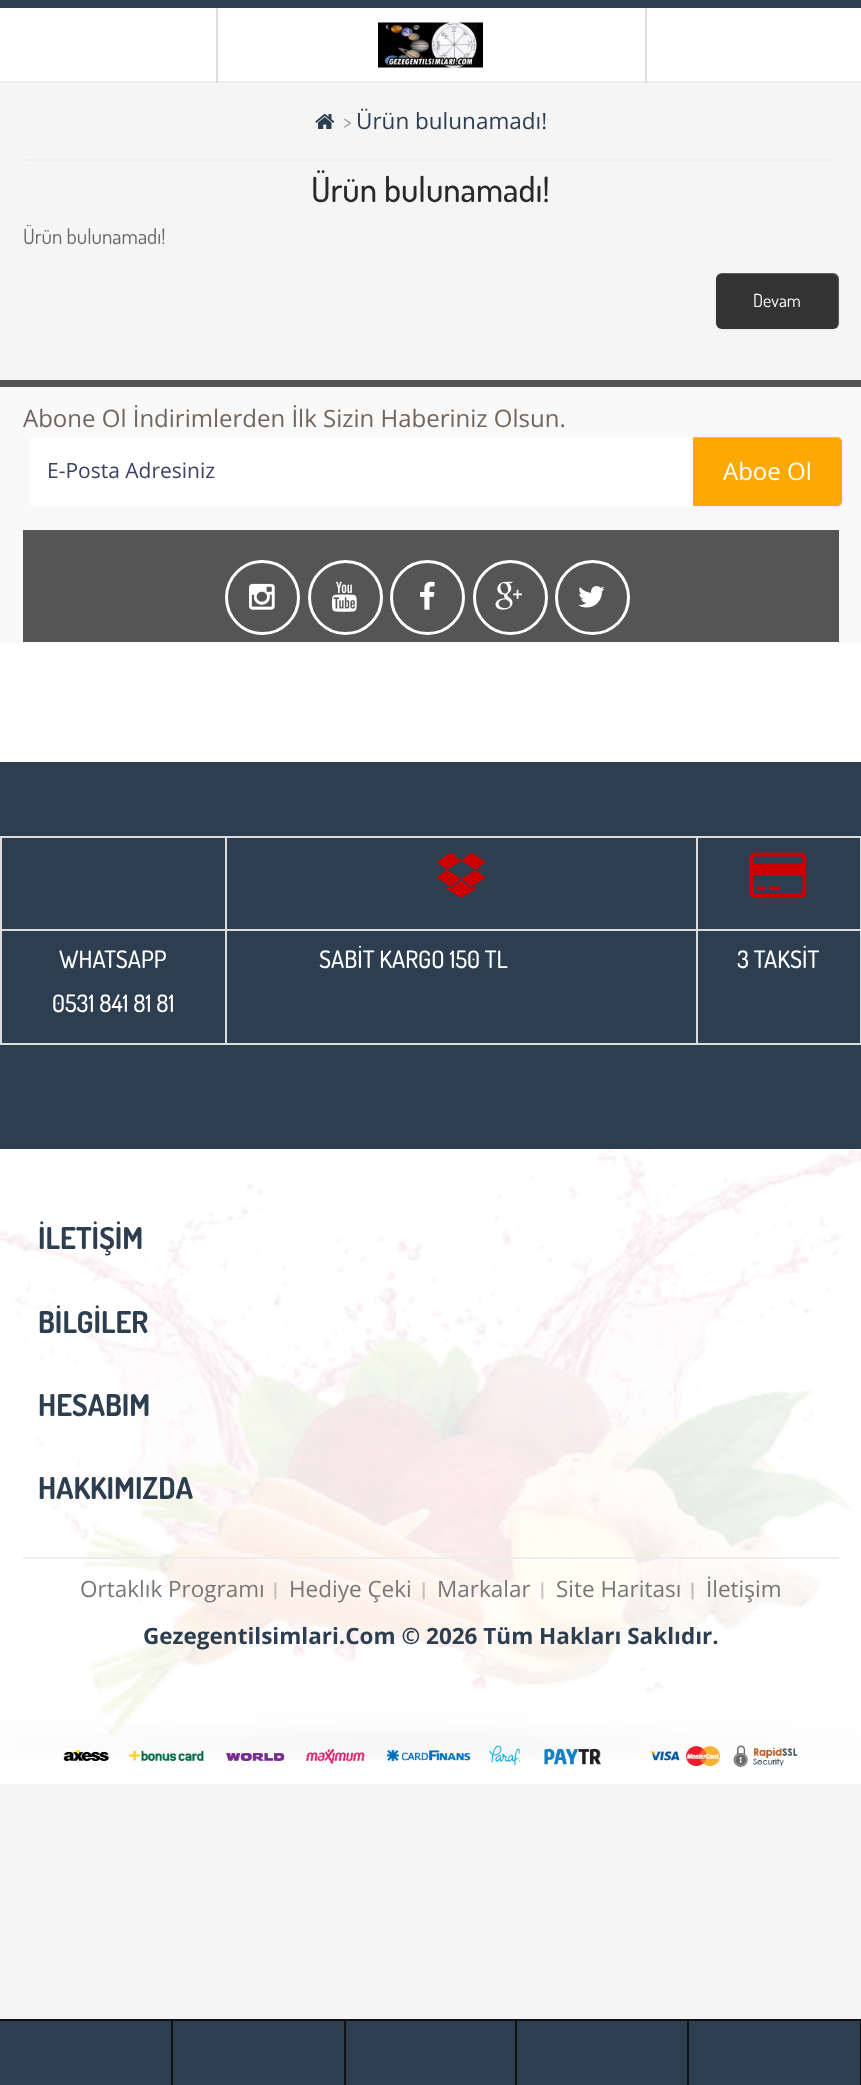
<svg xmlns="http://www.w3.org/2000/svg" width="861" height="2085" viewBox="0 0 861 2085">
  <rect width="100%" height="100%" fill="#f5f5f5"/>
  <path d="M0 0h861v8H0z" fill="#2c3e50"/>
  <path d="M0 8h861v73H0z" fill="#fff"/>
  <path d="M0 81h861v2H0z" fill="#eee"/>
  <path d="M645 8h2v75H645z" fill="#ddd"/>
  <path d="M216 8h2v75H216z" fill="#ddd"/>
  <image x="378" y="22" width="105" height="46" href="img/1.png"/>
  <path d="M26 159h810v2H26z" fill="#eee"/>
  <image x="315" y="114" width="20" height="15" href="img/2.png"/>
  <rect x="716" y="275" width="123" height="55" rx="6" fill="#0000000d" filter="blur(1.5px)"/>
  <rect x="716" y="273" width="123" height="56" rx="6" fill="#333"/>
  <path d="M722 274H832C836 274 838 277 838 280V324C838 325 838 326 837 327C838 326 839 325 839 323V279C839 276 836 273 833 273H722C719 273 716 276 716 279V280C716 277 718 274 722 274Z" fill="#ffffff33"/>
  <path d="M0 642h861v1142H0z" fill="#fff"/>
  <image x="0" y="1149" width="861" height="611" href="img/3.png"/>
  <path d="M0 387h861v255H0z" fill="#f9f9f9"/>
  <path d="M0 380h861v7H0z" fill="#555"/>
  <rect x="30" y="437" width="774" height="69" rx="3" fill="#fff"/>
  <rect x="693" y="438" width="149" height="69" rx="5" fill="#0000000d" filter="blur(1.5px)"/>
  <path d="M693 437H837C840 437 842 439 842 442V501C842 504 840 506 837 506H693Z" fill="#fda901"/>
  <path d="M693 438H837C839 438 842 440 842 442C842 439 840 437 837 437H693Z" fill="#ffffff33"/>
  <path d="M23 530h816v112H23z" fill="#555"/>
  <circle cx="262.5" cy="597.5" r="36" fill="none" stroke="#fff" stroke-width="3"/>
  <image x="249" y="583" width="26" height="27" href="img/4.png"/>
  <circle cx="345.5" cy="597.5" r="36" fill="none" stroke="#fff" stroke-width="3"/>
  <image x="331" y="581" width="26" height="31" href="img/5.png"/>
  <circle cx="427.5" cy="597.5" r="36" fill="none" stroke="#fff" stroke-width="3"/>
  <image x="420" y="581" width="15" height="29" href="img/6.png"/>
  <circle cx="510.5" cy="597.5" r="36" fill="none" stroke="#fff" stroke-width="3"/>
  <image x="495" y="581" width="27" height="29" href="img/7.png"/>
  <circle cx="592.5" cy="597.5" r="36" fill="none" stroke="#fff" stroke-width="3"/>
  <image x="578" y="586" width="27" height="22" href="img/8.png"/>
  <path d="M0 762h861v387H0z" fill="#2c3e50"/>
  <path d="M0 836h861v2H0z" fill="#ddd"/>
  <path d="M860 836h1v208H860z" fill="#ddd"/>
  <path d="M0 1043h861v2H0z" fill="#ddd"/>
  <path d="M0 836h2v208H0z" fill="#ddd"/>
  <path d="M696 929h165v2H696z" fill="#ddd"/>
  <path d="M696 929h2v115H696z" fill="#ddd"/>
  <path d="M225 929h473v2H225z" fill="#ddd"/>
  <path d="M225 929h2v115H225z" fill="#ddd"/>
  <path d="M0 929h227v2H0z" fill="#ddd"/>
  <path d="M225 836h2v94H225z" fill="#ddd"/>
  <image x="437" y="852" width="49" height="46" href="img/9.png"/>
  <path d="M696 836h2v94H696z" fill="#ddd"/>
  <image x="750" y="852" width="57" height="46" href="img/10.png"/>
  <path d="M23 1557h816v2H23z" fill="#eee"/>
  <image x="274" y="1582" width="3" height="18" href="img/11.png"/>
  <image x="422" y="1582" width="3" height="18" href="img/12.png"/>
  <image x="541" y="1582" width="3" height="18" href="img/13.png"/>
  <image x="691" y="1582" width="3" height="18" href="img/14.png"/>
  <image x="63" y="1745" width="735" height="22" href="img/15.png"/>
  <path d="M0 2021h860v64H0z" fill="#2c3e50"/>
  <path d="M0 2019h861v2H0z" fill="#111"/>
  <path d="M171 2021h2v64H171z" fill="#111"/>
  <path d="M344 2021h2v64H344z" fill="#111"/>
  <path d="M515 2021h2v64H515z" fill="#111"/>
  <path d="M687 2021h2v64H687z" fill="#111"/>
  <path d="M860 2021h1v64H860z" fill="#111"/>
  <text x="343" y="129" font-family="Dosis" font-size="21" fill="#999">&gt;</text>
  <text x="356" y="129" font-family="Open Sans" font-size="22.5" fill="#2c3e50">Ürün bulunamadı!</text>
  <text x="311" y="202" font-family="Dosis" font-size="34.5" font-weight="500" fill="#2a2a2a">Ürün bulunamadı!</text>
  <text x="23" y="244" font-family="Dosis" font-size="21" fill="#666">Ürün bulunamadı!</text>
  <text x="753" y="307" font-family="Dosis" font-size="18" fill="#fff">Devam</text>
  <text x="23" y="427" font-family="Open Sans" font-size="24" fill="#73645c">Abone Ol İndirimlerden İlk Sizin Haberiniz Olsun.</text>
  <text x="47" y="478" font-family="Open Sans" font-size="21" fill="#404166">E-Posta Adresiniz</text>
  <text x="723" y="480" font-family="Open Sans" font-size="24" fill="#fff">Aboe Ol</text>
  <g font-family="Dosis" font-size="24" font-weight="500" fill="#fff">
    <text x="59" y="968">WHATSAPP</text>
    <text x="52" y="1012">0531 841 81 81</text>
    <text x="319" y="968">SABİT KARGO 150 TL</text>
    <text x="737" y="968">3 TAKSİT</text>
  </g>
  <g font-family="Dosis" font-size="30" font-weight="bold" fill="#2c3e50">
    <text x="38" y="1249">İLETİŞİM</text>
    <text x="38" y="1333">BİLGİLER</text>
    <text x="38" y="1416">HESABIM</text>
    <text x="38" y="1499">HAKKIMIZDA</text>
  </g>
  <g font-family="Open Sans" font-size="22.5" fill="#777">
    <text x="80" y="1597">Ortaklık Programı</text>
    <text x="289" y="1597">Hediye Çeki</text>
    <text x="437" y="1597">Markalar</text>
    <text x="556" y="1597">Site Haritası</text>
    <text x="706" y="1597">İletişim</text>
  </g>
  <text x="143" y="1644" font-family="Open Sans" font-size="22.5" font-weight="bold" fill="#2c3e50">Gezegentilsimlari.Com © 2026 Tüm Hakları Saklıdır.</text>
</svg>
